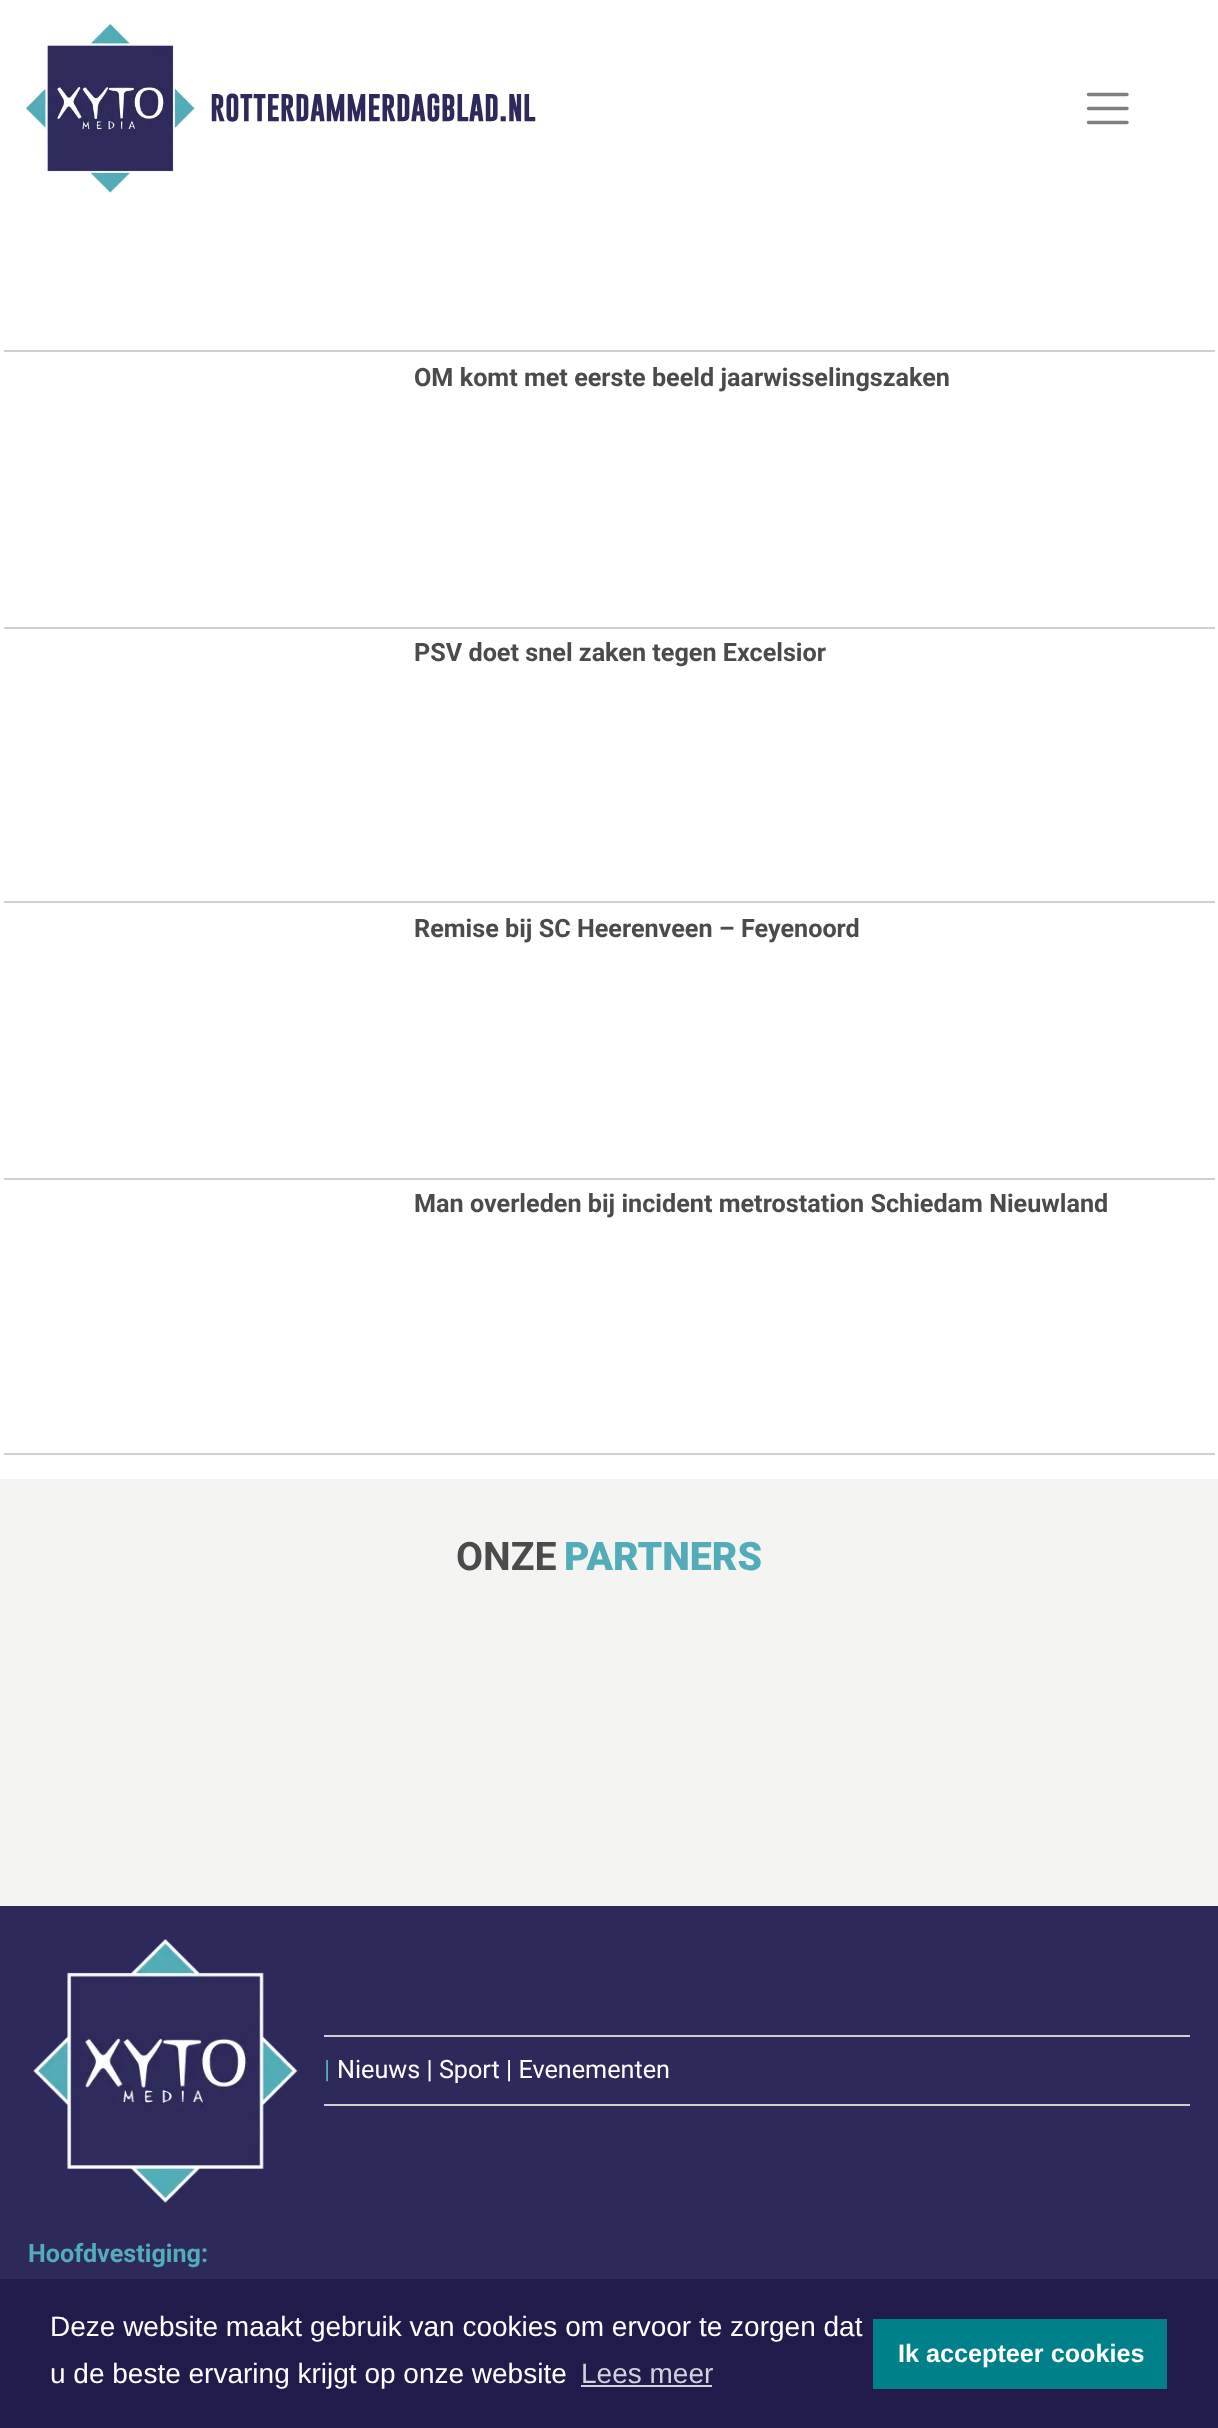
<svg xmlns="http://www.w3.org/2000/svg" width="1218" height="2428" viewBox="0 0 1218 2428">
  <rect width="100%" height="100%" fill="#fff"/>
  <image x="24" y="24" width="172" height="170" href="img/1.png"/>
  <path d="M1088.5 94.5H1127M1088.5 108.5H1127M1088.5 122.5H1127" fill="none" stroke="#808080" stroke-width="3.5" stroke-linecap="round"/>
  <path d="M4 350h1211v2H4z" fill="#cfcfcf"/>
  <path d="M4 627h1211v2H4z" fill="#cfcfcf"/>
  <path d="M4 901h1211v2H4z" fill="#cfcfcf"/>
  <path d="M4 1178h1211v2H4z" fill="#cfcfcf"/>
  <path d="M4 1453h1211v2H4z" fill="#cfcfcf"/>
  <path d="M0 1479h1218v427H0z" fill="#f4f4f2"/>
  <path d="M0 1906h1218v373H0z" fill="#2d2a5b"/>
  <image x="33" y="1939" width="265" height="264" href="img/2.png"/>
  <path d="M324 2035h866v2H324z" fill="#cfcfcf"/>
  <path d="M324 2104h866v2H324z" fill="#cfcfcf"/>
  <path d="M0 2279h1218v149H0z" fill="#201b4a"/>
  <path d="M581 2385h131v2H581z" fill="#d2d1db"/>
  <path d="M873 2319h294v70H873z" fill="#00818a"/>
  <text x="210" y="121" font-family="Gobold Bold" font-size="28" font-weight="bold" fill="#2d2a5b">ROTTERDAMMERDAGBLAD.NL</text>
  <g font-family="Roboto" font-size="25.2" font-weight="bold" fill="#4c4b4b">
    <text x="414" y="386">OM komt met eerste beeld jaarwisselingszaken</text>
    <text x="414" y="661">PSV doet snel zaken tegen Excelsior</text>
    <text x="414" y="937">Remise bij SC Heerenveen – Feyenoord</text>
    <text x="414" y="1212">Man overleden bij incident metrostation Schiedam Nieuwland</text>
  </g>
  <text x="456" y="1570" font-family="Roboto" font-size="39.25" font-weight="bold" fill="#4c4b4b">ONZE</text>
  <text x="564" y="1570" font-family="Roboto" font-size="39.25" font-weight="900" fill="#53acb8">PARTNERS</text>
  <text x="324" y="2078" font-family="Roboto" font-size="25.2" fill="#53acb8">|</text>
  <text x="337" y="2078" font-family="Roboto" font-size="25.2" fill="#fff">Nieuws | Sport | Evenementen</text>
  <text x="28" y="2262" font-family="Roboto" font-size="25.2" font-weight="bold" fill="#53acb8">Hoofdvestiging:</text>
  <g font-family="Liberation Sans" font-size="28" fill="#fff">
    <text x="50" y="2336">Deze website maakt gebruik van cookies om ervoor te zorgen dat</text>
    <text x="50" y="2383">u de beste ervaring krijgt op onze website</text>
  </g>
  <text x="581" y="2383" font-family="Liberation Sans" font-size="28" fill="#d2d1db">Lees meer</text>
  <text x="898" y="2362" font-family="Liberation Sans" font-size="25.2" font-weight="bold" fill="#fff">Ik accepteer cookies</text>
</svg>
